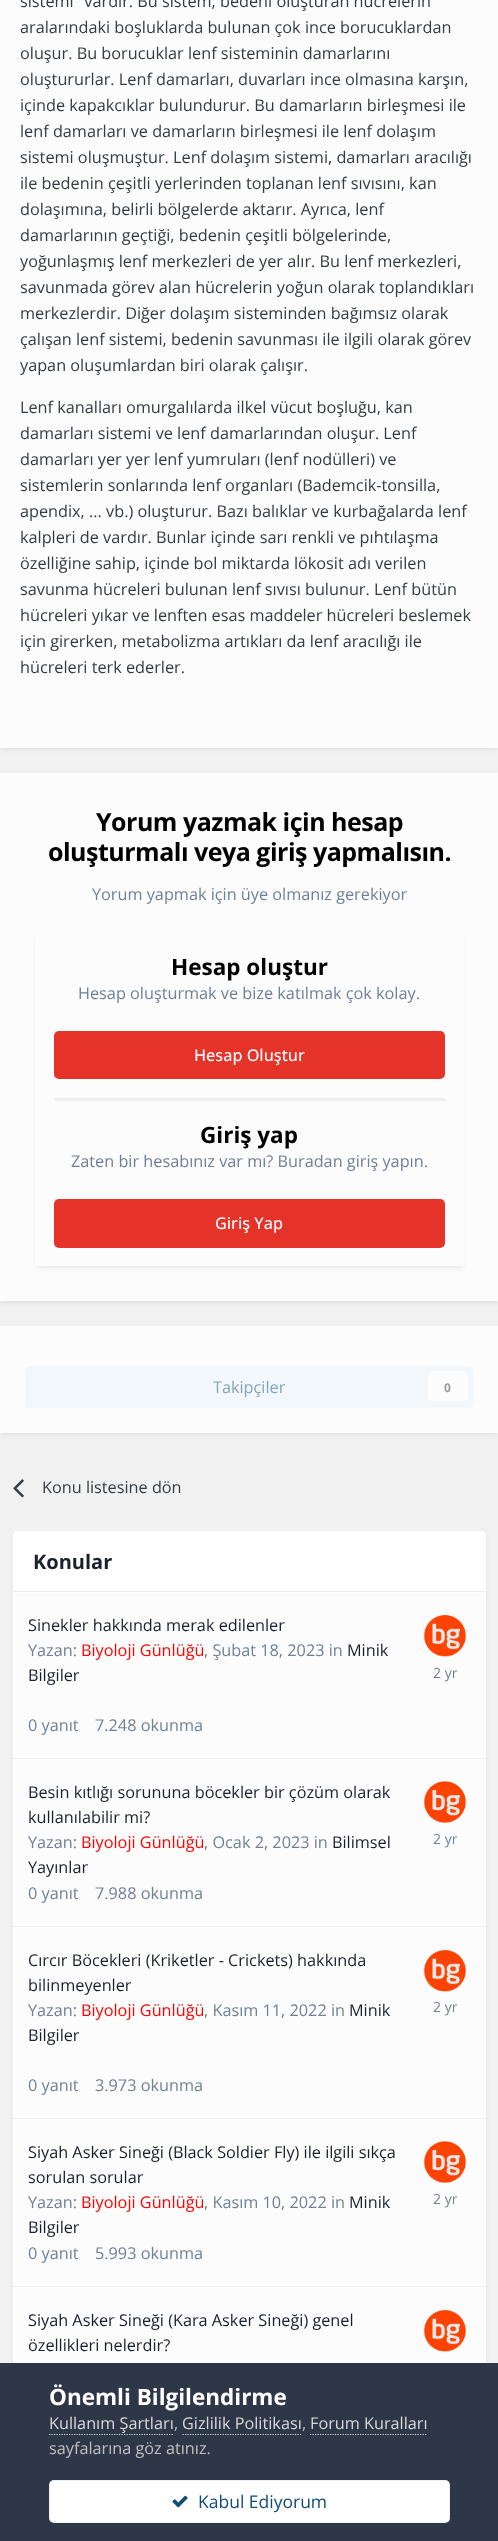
<svg xmlns="http://www.w3.org/2000/svg" width="498" height="2541" viewBox="0 0 498 2541">
  <rect width="100%" height="100%" fill="#f1f1f1"/>
  <path d="M1 -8h497v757H1z" fill="#2d37481a" filter="blur(2.5px)"/>
  <path d="M0 0h498v748H0z" fill="#fcfcfc"/>
  <path d="M1 776h497v527H1z" fill="#2d37481a" filter="blur(2.5px)"/>
  <path d="M0 773h498v528H0z" fill="#fcfcfc"/>
  <path d="M36 936h427v332H36z" fill="#2d37481a" filter="blur(2.5px)"/>
  <path d="M35 933h429v333H35z" fill="#fcfcfc"/>
  <path d="M54 1098h391v3H54z" fill="#efefef"/>
  <rect x="54" y="1031" width="391" height="48" rx="5" fill="#e6332a"/>
  <rect x="54" y="1199" width="391" height="49" rx="5" fill="#e6332a"/>
  <path d="M1 1330h497v104H1z" fill="#2d37481a" filter="blur(2.5px)"/>
  <path d="M0 1326h498v107H0z" fill="#fcfcfc"/>
  <rect x="25" y="1366" width="449" height="42" rx="5" fill="#f2f7fb"/>
  <rect x="428" y="1371" width="40" height="30" rx="5" fill="#fcfcfc"/>
  <image x="13" y="1479" width="11" height="19" href="img/1.png"/>
  <rect x="14" y="1535" width="471" height="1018" rx="4" fill="#2d37481a" filter="blur(2.5px)"/>
  <rect x="13" y="1531" width="473" height="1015" rx="5" fill="#fcfcfc"/>
  <path d="M18 1531H481C484 1531 486 1533 486 1536V1593H13V1536C13 1533 15 1531 18 1531Z" fill="#fff"/>
  <path d="M13 1591h473v1H13z" fill="#eaecef"/>
  <path d="M13 1758h473v1H13z" fill="#eef0f2"/>
  <image x="423" y="1614" width="43" height="43" href="img/2.png"/>
  <path d="M13 1926h473v1H13z" fill="#eef0f2"/>
  <image x="424" y="1781" width="42" height="42" href="img/3.png"/>
  <path d="M13 2118h473v1H13z" fill="#eef0f2"/>
  <image x="423" y="1949" width="43" height="43" href="img/4.png"/>
  <path d="M13 2286h473v1H13z" fill="#eef0f2"/>
  <image x="424" y="2141" width="42" height="42" href="img/3.png"/>
  <image x="423" y="2309" width="43" height="43" href="img/5.png"/>
  <path d="M0 2363h498v178H0z" fill="#2d3748"/>
  <path d="M49 2434.5H174" fill="none" stroke="#dadada" stroke-width="1.2" stroke-dasharray="1.25 1.25"/>
  <path d="M182.5 2434.5H302.5" fill="none" stroke="#dadada" stroke-width="1.2" stroke-dasharray="1.25 1.25"/>
  <path d="M310 2434.5H427.5" fill="none" stroke="#dadada" stroke-width="1.2" stroke-dasharray="1.25 1.25"/>
  <rect x="49" y="2480" width="401" height="43" rx="5" fill="#fff"/>
  <rect x="49.5" y="2480.5" width="400" height="42" rx="4.5" fill="none" stroke="#0e4c7912"/>
  <image x="172" y="2495" width="16" height="13" href="img/6.png"/>
  <g font-family="Open Sans" font-size="16.25" fill="#353c41">
    <text x="20" y="7">sistemi" vardır. Bu sistem, bedeni oluşturan hücrelerin</text>
    <text x="20" y="33">aralarındaki boşluklarda bulunan çok ince borucuklardan</text>
    <text x="20" y="59">oluşur. Bu borucuklar lenf sisteminin damarlarını</text>
    <text x="20" y="85">oluştururlar. Lenf damarları, duvarları ince olmasına karşın,</text>
    <text x="20" y="111">içinde kapakcıklar bulundurur. Bu damarların birleşmesi ile</text>
    <text x="20" y="137">lenf damarları ve damarların birleşmesi ile lenf dolaşım</text>
    <text x="20" y="163">sistemi oluşmuştur. Lenf dolaşım sistemi, damarları aracılığı</text>
    <text x="20" y="189">ile bedenin çeşitli yerlerinden toplanan lenf sıvısını, kan</text>
    <text x="20" y="215">dolaşımına, belirli bölgelerde aktarır. Ayrıca, lenf</text>
    <text x="20" y="241">damarlarının geçtiği, bedenin çeşitli bölgelerinde,</text>
    <text x="20" y="267">yoğunlaşmış lenf merkezleri de yer alır. Bu lenf merkezleri,</text>
    <text x="20" y="293">savunmada görev alan hücrelerin yoğun olarak toplandıkları</text>
    <text x="20" y="319">merkezlerdir. Diğer dolaşım sisteminden bağımsız olarak</text>
    <text x="20" y="345">çalışan lenf sistemi, bedenin savunması ile ilgili olarak görev</text>
    <text x="20" y="371">yapan oluşumlardan biri olarak çalışır.</text>
    <text x="20" y="413">Lenf kanalları omurgalılarda ilkel vücut boşluğu, kan</text>
    <text x="20" y="439">damarları sistemi ve lenf damarlarından oluşur. Lenf</text>
    <text x="20" y="465">damarları yer yer lenf yumruları (lenf nodülleri) ve</text>
    <text x="20" y="491">sistemlerin sonlarında lenf organları (Bademcik-tonsilla,</text>
    <text x="20" y="517">apendix, ... vb.) oluşturur. Bazı balıklar ve kurbağalarda lenf</text>
    <text x="20" y="543">kalpleri de vardır. Bunlar içinde sarı renkli ve pıhtılaşma</text>
    <text x="20" y="569">özelliğine sahip, içinde bol miktarda lökosit adı verilen</text>
    <text x="20" y="595">savunma hücreleri bulunan lenf sıvısı bulunur. Lenf bütün</text>
    <text x="20" y="621">hücreleri yıkar ve lenften esas maddeler hücreleri beslemek</text>
    <text x="20" y="647">için girerken, metabolizma artıkları da lenf aracılığı ile</text>
    <text x="20" y="673">hücreleri terk ederler.</text>
  </g>
  <g font-family="Open Sans" font-size="25" font-weight="bold" letter-spacing="-0.5" fill="#000">
    <text x="96" y="831">Yorum yazmak için hesap</text>
    <text x="48" y="861">oluşturmalı veya giriş yapmalısın.</text>
  </g>
  <text x="92" y="900" font-family="Open Sans" font-size="16.25" fill="#718096">Yorum yapmak için üye olmanız gerekiyor</text>
  <text x="171" y="975" font-family="Open Sans" font-size="22.5" font-weight="bold" fill="#000">Hesap oluştur</text>
  <text x="78" y="999" font-family="Open Sans" font-size="16.25" fill="#718096">Hesap oluşturmak ve bize katılmak çok kolay.</text>
  <text x="194" y="1061" font-family="Open Sans" font-size="16.25" font-weight="500" fill="#fff">Hesap Oluştur</text>
  <text x="200" y="1143" font-family="Open Sans" font-size="22.5" font-weight="bold" fill="#000">Giriş yap</text>
  <text x="71" y="1167" font-family="Open Sans" font-size="16.25" fill="#718096">Zaten bir hesabınız var mı? Buradan giriş yapın.</text>
  <text x="215" y="1229" font-family="Open Sans" font-size="16.25" font-weight="500" fill="#fff">Giriş Yap</text>
  <text x="213" y="1393" font-family="Open Sans" font-size="16.25" fill="#85a4bb">Takipçiler</text>
  <text x="444" y="1392" font-family="Open Sans" font-size="12" font-weight="bold" fill="#999c9f">0</text>
  <text x="42" y="1493" font-family="Open Sans" font-size="16.25" fill="#353c41">Konu listesine dön</text>
  <text x="33" y="1569" font-family="Open Sans" font-size="20" font-weight="bold" fill="#1a202c">Konular</text>
  <text x="28" y="1631" font-family="Open Sans" font-size="16.25" fill="#1a202c">Sinekler hakkında merak edilenler</text>
  <text x="28" y="1656" font-family="Open Sans" font-size="16.25" fill="#718096">Yazan:</text>
  <text x="81" y="1656" font-family="Open Sans" font-size="16.25" fill="#f00">Biyoloji Günlüğü</text>
  <text x="204" y="1656" font-family="Open Sans" font-size="16.25" fill="#718096">, Şubat 18, 2023 in</text>
  <g font-family="Open Sans" font-size="16.25" fill="#1a202c">
    <text x="347" y="1656">Minik</text>
    <text x="28" y="1681">Bilgiler</text>
  </g>
  <text x="433" y="1678" font-family="Open Sans" font-size="14" fill="#718096">2 yr</text>
  <g font-family="Open Sans" font-size="16.25" fill="#718096">
    <text x="28" y="1731">0 yanıt</text>
    <text x="95" y="1731">7.248 okunma</text>
  </g>
  <g font-family="Open Sans" font-size="16.25" fill="#1a202c">
    <text x="28" y="1798">Besin kıtlığı sorununa böcekler bir çözüm olarak</text>
    <text x="28" y="1823">kullanılabilir mi?</text>
  </g>
  <text x="28" y="1848" font-family="Open Sans" font-size="16.25" fill="#718096">Yazan:</text>
  <text x="81" y="1848" font-family="Open Sans" font-size="16.25" fill="#f00">Biyoloji Günlüğü</text>
  <text x="204" y="1848" font-family="Open Sans" font-size="16.25" fill="#718096">, Ocak 2, 2023 in</text>
  <g font-family="Open Sans" font-size="16.25" fill="#1a202c">
    <text x="332" y="1848">Bilimsel</text>
    <text x="28" y="1873">Yayınlar</text>
  </g>
  <text x="433" y="1844" font-family="Open Sans" font-size="14" fill="#718096">2 yr</text>
  <g font-family="Open Sans" font-size="16.25" fill="#718096">
    <text x="28" y="1899">0 yanıt</text>
    <text x="95" y="1899">7.988 okunma</text>
  </g>
  <g font-family="Open Sans" font-size="16.25" fill="#1a202c">
    <text x="28" y="1966">Cırcır Böcekleri (Kriketler - Crickets) hakkında</text>
    <text x="28" y="1991">bilinmeyenler</text>
  </g>
  <text x="28" y="2016" font-family="Open Sans" font-size="16.25" fill="#718096">Yazan:</text>
  <text x="81" y="2016" font-family="Open Sans" font-size="16.25" fill="#f00">Biyoloji Günlüğü</text>
  <text x="204" y="2016" font-family="Open Sans" font-size="16.25" fill="#718096">, Kasım 11, 2022 in</text>
  <g font-family="Open Sans" font-size="16.25" fill="#1a202c">
    <text x="349" y="2016">Minik</text>
    <text x="28" y="2041">Bilgiler</text>
  </g>
  <text x="433" y="2012" font-family="Open Sans" font-size="14" fill="#718096">2 yr</text>
  <g font-family="Open Sans" font-size="16.25" fill="#718096">
    <text x="28" y="2091">0 yanıt</text>
    <text x="95" y="2091">3.973 okunma</text>
  </g>
  <g font-family="Open Sans" font-size="16.25" fill="#1a202c">
    <text x="28" y="2158">Siyah Asker Sineği (Black Soldier Fly) ile ilgili sıkça</text>
    <text x="28" y="2183">sorulan sorular</text>
  </g>
  <text x="28" y="2208" font-family="Open Sans" font-size="16.25" fill="#718096">Yazan:</text>
  <text x="81" y="2208" font-family="Open Sans" font-size="16.25" fill="#f00">Biyoloji Günlüğü</text>
  <text x="204" y="2208" font-family="Open Sans" font-size="16.25" fill="#718096">, Kasım 10, 2022 in</text>
  <g font-family="Open Sans" font-size="16.25" fill="#1a202c">
    <text x="349" y="2208">Minik</text>
    <text x="28" y="2233">Bilgiler</text>
  </g>
  <text x="433" y="2204" font-family="Open Sans" font-size="14" fill="#718096">2 yr</text>
  <g font-family="Open Sans" font-size="16.25" fill="#718096">
    <text x="28" y="2259">0 yanıt</text>
    <text x="95" y="2259">5.993 okunma</text>
  </g>
  <g font-family="Open Sans" font-size="16.25" fill="#1a202c">
    <text x="28" y="2326">Siyah Asker Sineği (Kara Asker Sineği) genel</text>
    <text x="28" y="2351">özellikleri nelerdir?</text>
  </g>
  <text x="49" y="2405" font-family="Open Sans" font-size="22.5" font-weight="bold" fill="#fff">Önemli Bilgilendirme</text>
  <text x="49" y="2429" font-family="Open Sans" font-size="16.25" fill="#dadada">Kullanım Şartları</text>
  <text x="174" y="2429" font-family="Open Sans" font-size="16.25" fill="#c0c0c0">,</text>
  <text x="182" y="2429" font-family="Open Sans" font-size="16.25" fill="#dadada">Gizlilik Politikası</text>
  <text x="302" y="2429" font-family="Open Sans" font-size="16.25" fill="#c0c0c0">,</text>
  <text x="310" y="2429" font-family="Open Sans" font-size="16.25" fill="#dadada">Forum Kuralları</text>
  <text x="49" y="2454" font-family="Open Sans" font-size="16.25" fill="#c0c0c0">sayfalarına göz atınız.</text>
  <text x="198" y="2508" font-family="Open Sans" font-size="17.5" fill="#0e4c79">Kabul Ediyorum</text>
</svg>
